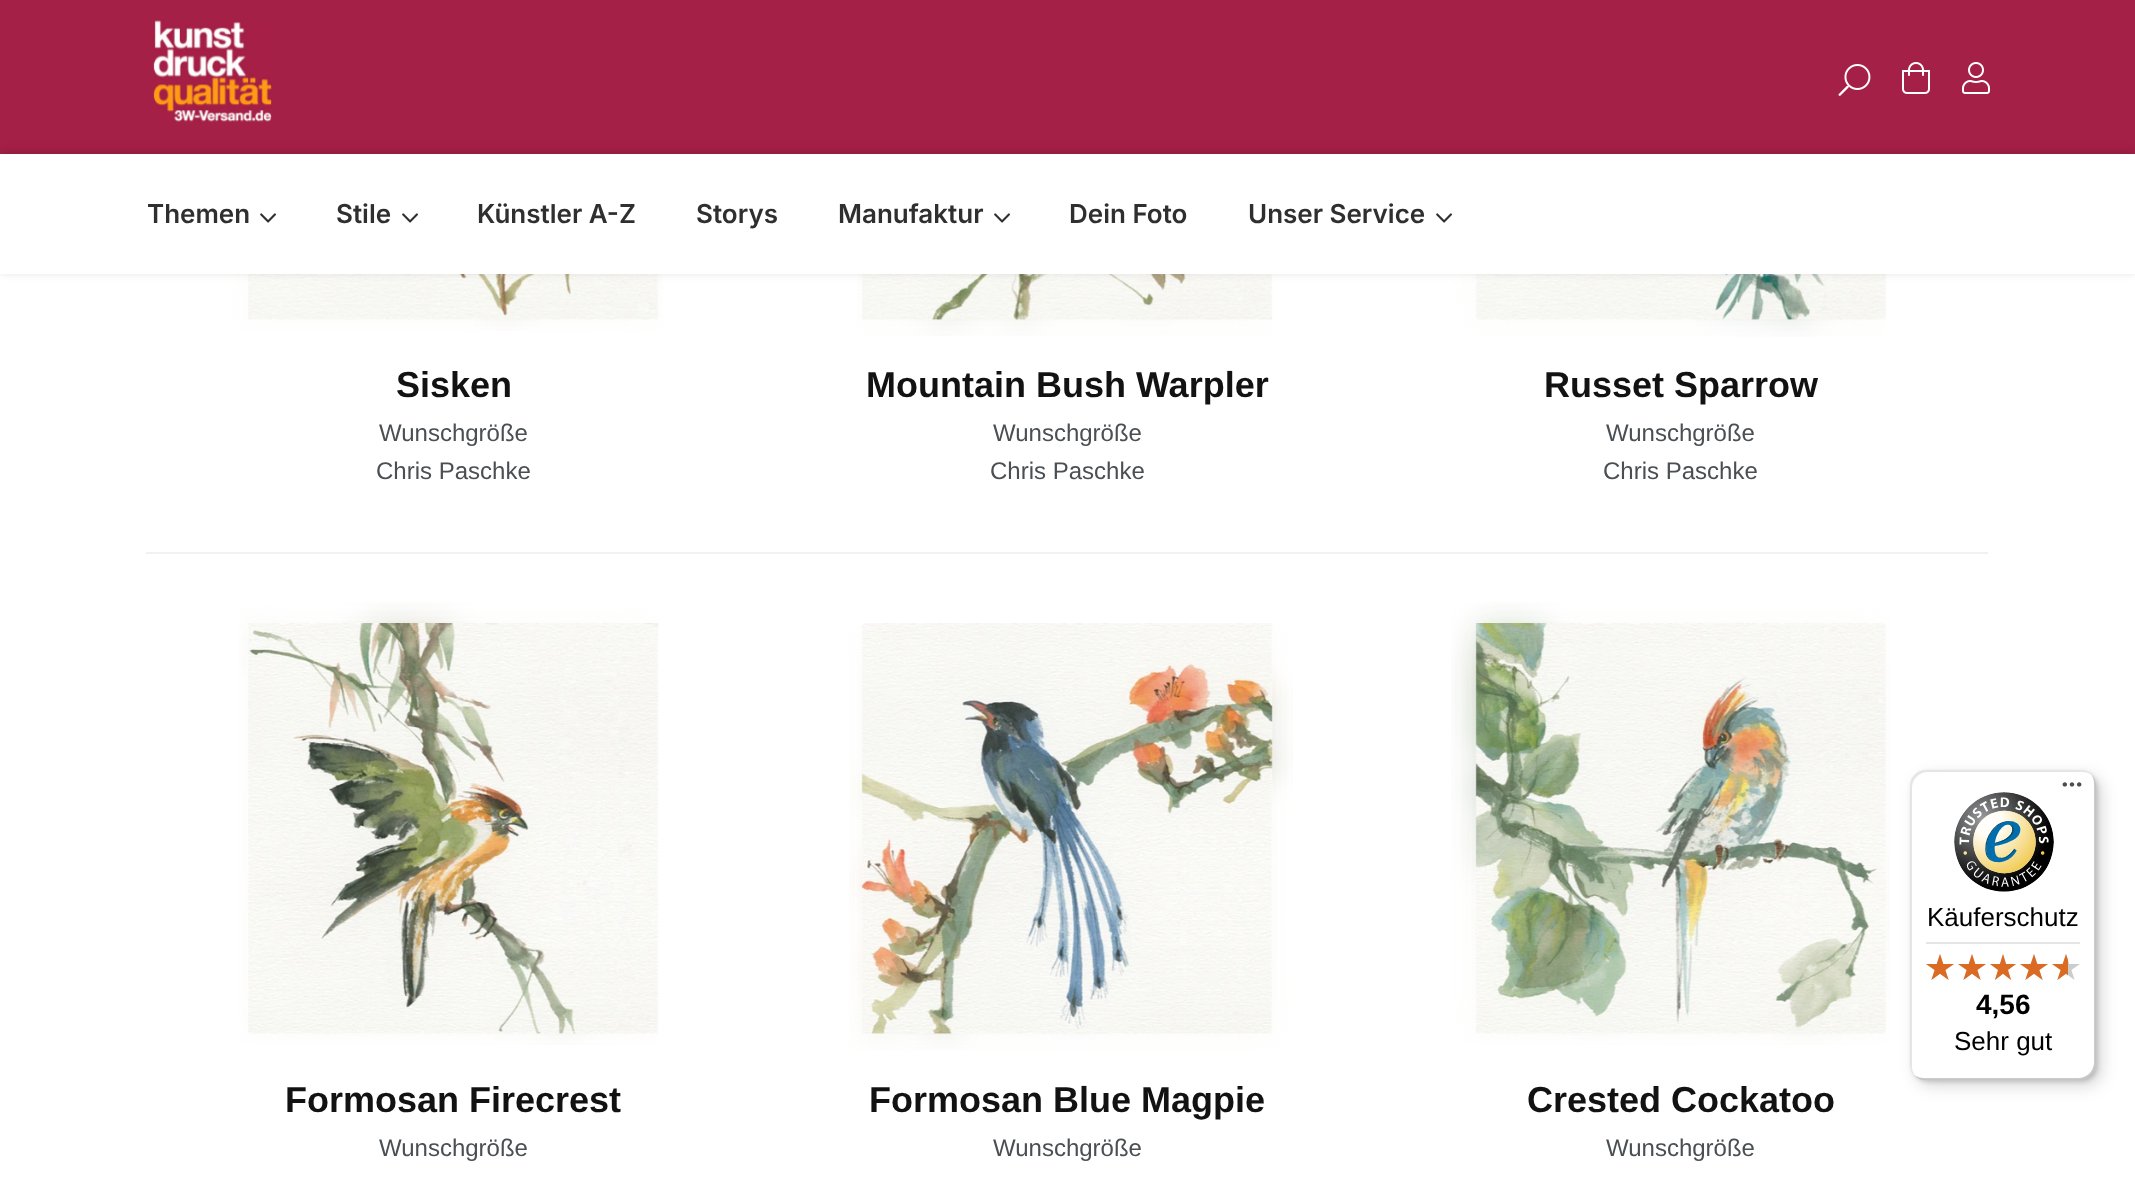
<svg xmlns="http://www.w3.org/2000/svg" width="2135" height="1187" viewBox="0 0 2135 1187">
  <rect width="100%" height="100%" fill="#fff"/>
  <path d="M0 0h2135v154H0z" fill="#a52046"/>
  <image x="153" y="20" width="119" height="102" href="img/1.png"/>
  <image x="1838" y="64" width="33" height="32" href="img/2.png"/>
  <image x="1902" y="62" width="28" height="32" href="img/3.png"/>
  <image x="1962" y="62" width="28" height="32" href="img/4.png"/>
  <image x="228" y="274" width="435" height="57" href="img/6.png"/>
  <image x="248" y="274" width="411" height="46" href="img/7.png"/>
  <image x="857" y="274" width="415" height="62" href="img/8.png"/>
  <image x="862" y="274" width="411" height="46" href="img/9.png"/>
  <image x="1455" y="274" width="431" height="63" href="img/10.png"/>
  <image x="1475" y="274" width="411" height="46" href="img/11.png"/>
  <path d="M0 152h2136v120H0z" fill="#00000026" filter="blur(5px)"/>
  <path d="M0 154h2135v120H0z" fill="#fff"/>
  <image x="260" y="213" width="16" height="10" href="img/5.png"/>
  <image x="402" y="213" width="16" height="10" href="img/5.png"/>
  <image x="994" y="213" width="16" height="10" href="img/5.png"/>
  <image x="1436" y="213" width="16" height="10" href="img/5.png"/>
  <path d="M146 552h1842v2H146z" fill="#f1f1f1"/>
  <image x="239" y="602" width="419" height="443" href="img/12.png"/>
  <image x="248" y="623" width="411" height="411" href="img/13.png"/>
  <image x="849" y="625" width="444" height="426" href="img/15.png"/>
  <image x="861" y="623" width="412" height="411" href="img/14.png"/>
  <image x="1451" y="602" width="439" height="443" href="img/16.png"/>
  <image x="1475" y="623" width="411" height="411" href="img/17.png"/>
  <rect x="1916" y="776" width="186" height="310" rx="16" fill="#00000026" filter="blur(8px)"/>
  <rect x="1912" y="772" width="186" height="310" rx="16" fill="#00000026" filter="blur(2px)"/>
  <rect x="1910" y="770" width="186" height="310" rx="16" fill="#fff"/>
  <path d="M1928 772H2082C2086 772 2089 773 2092 775C2089 772 2085 770 2080 770H1926C1917 770 1910 777 1910 786V1064C1910 1069 1912 1073 1915 1076C1913 1073 1912 1070 1912 1066V788C1912 779 1919 772 1928 772Z" fill="#0000001a"/>
  <path d="M1914 1075C1917 1078 1921 1080 1926 1080H2080C2089 1080 2096 1073 2096 1064V786C2096 781 2094 777 2091 774C2093 777 2094 780 2094 784V1062C2094 1071 2087 1078 2078 1078H1924C1920 1078 1917 1077 1914 1075Z" fill="#00000033"/>
  <path d="M1915 1075C1918 1078 1922 1080 1926 1080H2080C2089 1080 2096 1073 2096 1064V786C2096 782 2094 778 2091 775C2094 778 2095 781 2095 785V1063C2095 1072 2088 1079 2079 1079H1925C1921 1079 1918 1078 1915 1075Z" fill="#32323233"/>
  <path d="M1915 1075C1918 1078 1922 1080 1926 1080H2080C2089 1080 2096 1073 2096 1064V786C2096 782 2094 778 2091 775C2094 778 2095 781 2095 785V1063C2095 1072 2088 1079 2079 1079H1925C1921 1079 1918 1078 1915 1075Z" fill="#ffffff4d"/>
  <image x="2062" y="782" width="20" height="5" href="img/18.png"/>
  <image x="1954" y="792" width="100" height="100" href="img/19.png"/>
  <path d="M1926 942h154v2H1926z" fill="#e5e5e5"/>
  <image x="1926" y="954" width="28" height="26" href="img/20.png"/>
  <image x="1958" y="954" width="28" height="26" href="img/20.png"/>
  <image x="1990" y="954" width="26" height="26" href="img/21.png"/>
  <image x="2020" y="954" width="28" height="26" href="img/20.png"/>
  <image x="2052" y="954" width="28" height="26" href="img/20.png"/>
  <image x="1926" y="954" width="28" height="26" href="img/22.png"/>
  <image x="1958" y="954" width="28" height="26" href="img/22.png"/>
  <image x="1990" y="954" width="26" height="26" href="img/23.png"/>
  <image x="2020" y="954" width="28" height="26" href="img/22.png"/>
  <image x="2052" y="954" width="16" height="26" href="img/24.png"/>
  <g font-family="Inter" font-size="26" font-weight="600" fill="#2f2f2f">
    <text x="147" y="223">Themen</text>
    <text x="336" y="223">Stile</text>
    <text x="477" y="223">Künstler A-Z</text>
    <text x="696" y="223">Storys</text>
    <text x="838" y="223">Manufaktur</text>
    <text x="1069" y="223">Dein Foto</text>
    <text x="1248" y="223">Unser Service</text>
  </g>
  <text x="396" y="397" font-family="Liberation Sans" font-size="36" font-weight="bold" fill="#121212">Sisken</text>
  <g font-family="Liberation Sans" font-size="24" fill="#4a4f53">
    <text x="379" y="441">Wunschgröße</text>
    <text x="376" y="479">Chris Paschke</text>
  </g>
  <text x="866" y="397" font-family="Liberation Sans" font-size="36" font-weight="bold" fill="#121212">Mountain Bush Warpler</text>
  <g font-family="Liberation Sans" font-size="24" fill="#4a4f53">
    <text x="993" y="441">Wunschgröße</text>
    <text x="990" y="479">Chris Paschke</text>
  </g>
  <text x="1544" y="397" font-family="Liberation Sans" font-size="36" font-weight="bold" fill="#121212">Russet Sparrow</text>
  <g font-family="Liberation Sans" font-size="24" fill="#4a4f53">
    <text x="1606" y="441">Wunschgröße</text>
    <text x="1603" y="479">Chris Paschke</text>
  </g>
  <text x="285" y="1112" font-family="Liberation Sans" font-size="36" font-weight="bold" fill="#121212">Formosan Firecrest</text>
  <text x="379" y="1156" font-family="Liberation Sans" font-size="24" fill="#4a4f53">Wunschgröße</text>
  <text x="869" y="1112" font-family="Liberation Sans" font-size="36" font-weight="bold" fill="#121212">Formosan Blue Magpie</text>
  <text x="993" y="1156" font-family="Liberation Sans" font-size="24" fill="#4a4f53">Wunschgröße</text>
  <text x="1527" y="1112" font-family="Liberation Sans" font-size="36" font-weight="bold" fill="#121212">Crested Cockatoo</text>
  <text x="1606" y="1156" font-family="Liberation Sans" font-size="24" fill="#4a4f53">Wunschgröße</text>
  <text x="1927" y="926" font-family="Liberation Sans" font-size="26" fill="#000">Käuferschutz</text>
  <text x="1976" y="1014" font-family="Liberation Sans" font-size="28" font-weight="bold" fill="#000">4,56</text>
  <text x="1954" y="1050" font-family="Liberation Sans" font-size="26" fill="#000">Sehr gut</text>
</svg>
